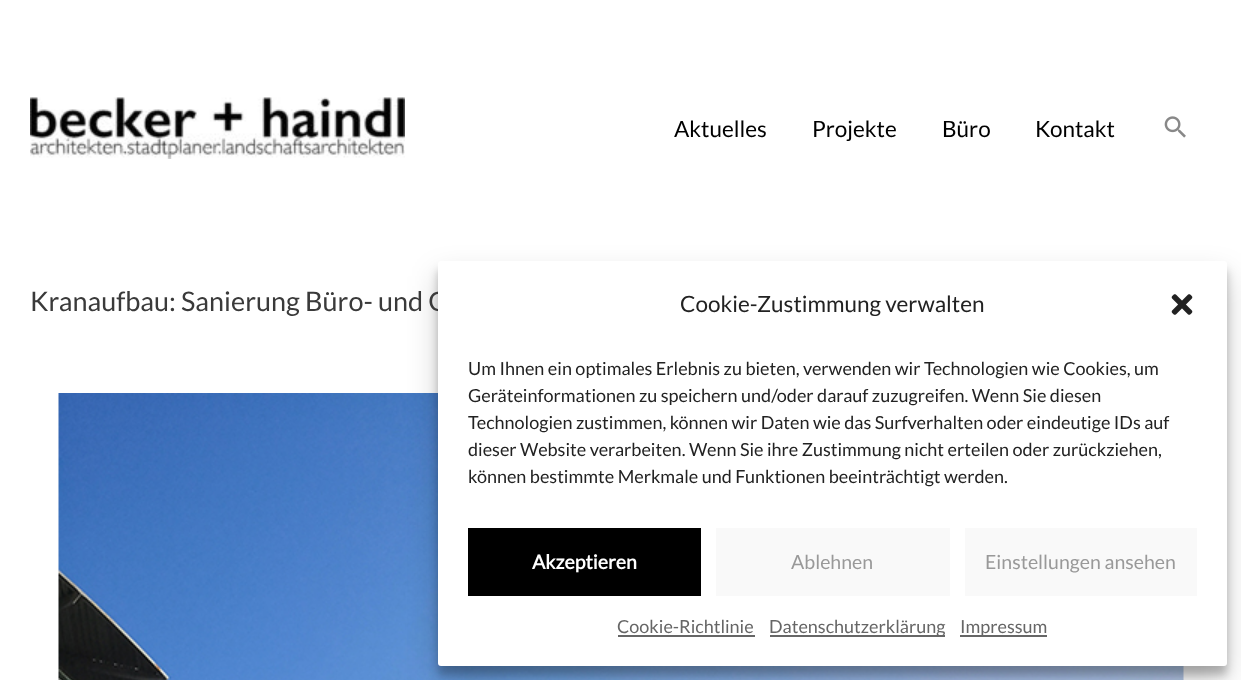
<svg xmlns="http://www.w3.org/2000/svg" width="1241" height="680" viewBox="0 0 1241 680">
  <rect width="100%" height="100%" fill="#fff"/>
  <image x="30" y="97" width="375" height="62" href="img/1.png"/>
  <image x="1164" y="116" width="22" height="22" href="img/2.png"/>
  <image x="58" y="393" width="1126" height="287" href="img/3.png"/>
  <rect x="438" y="270" width="789" height="405" rx="3" fill="#0000003b" filter="blur(4.5px)"/>
  <rect x="438" y="276" width="789" height="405" rx="3" fill="#00000030" filter="blur(15px)"/>
  <g font-family="Lato" font-size="22.5" fill="#000">
    <text x="674" y="137">Aktuelles</text>
    <text x="812" y="137">Projekte</text>
    <text x="942" y="137">Büro</text>
    <text x="1035" y="137">Kontakt</text>
  </g>
  <text x="30" y="311" font-family="Lato" font-size="27" fill="#3a3a3a">Kranaufbau: Sanierung Büro- und G</text>
  <rect x="438" y="261" width="789" height="405" rx="3" fill="#fff"/>
  <text x="680" y="312" font-family="Lato" font-size="22.5" fill="#222">Cookie-Zustimmung verwalten</text>
  <image x="1171" y="294" width="22" height="21" href="img/4.png"/>
  <g font-family="Lato" font-size="18" fill="#222">
    <text x="468" y="375">Um Ihnen ein optimales Erlebnis zu bieten, verwenden wir Technologien wie Cookies, um</text>
    <text x="468" y="402">Geräteinformationen zu speichern und/oder darauf zuzugreifen. Wenn Sie diesen</text>
    <text x="468" y="429">Technologien zustimmen, können wir Daten wie das Surfverhalten oder eindeutige IDs auf</text>
    <text x="468" y="456">dieser Website verarbeiten. Wenn Sie ihre Zustimmung nicht erteilen oder zurückziehen,</text>
    <text x="468" y="483">können bestimmte Merkmale und Funktionen beeinträchtigt werden.</text>
  </g>
  <path d="M468 528h233v68H468z" fill="#000"/>
  <text x="532" y="569" font-family="Lato" font-size="19.5" font-weight="bold" fill="#fff">Akzeptieren</text>
  <path d="M716 528h234v68H716z" fill="#f9f9f9"/>
  <text x="791" y="569" font-family="Lato" font-size="19.5" fill="#999">Ablehnen</text>
  <path d="M965 528h232v68H965z" fill="#f9f9f9"/>
  <text x="985" y="569" font-family="Lato" font-size="19.5" fill="#999">Einstellungen ansehen</text>
  <text x="617" y="633" font-family="Lato" font-size="18" fill="#666">Cookie-Richtlinie</text>
  <path d="M618 635h137v2H618z" fill="#666"/>
  <path d="M770 635h175v2H770z" fill="#666"/>
  <text x="769" y="633" font-family="Lato" font-size="18" fill="#666">Datenschutzerklärung</text>
  <path d="M960 635h87v2H960z" fill="#666"/>
  <text x="960" y="633" font-family="Lato" font-size="18" fill="#666">Impressum</text>
</svg>
